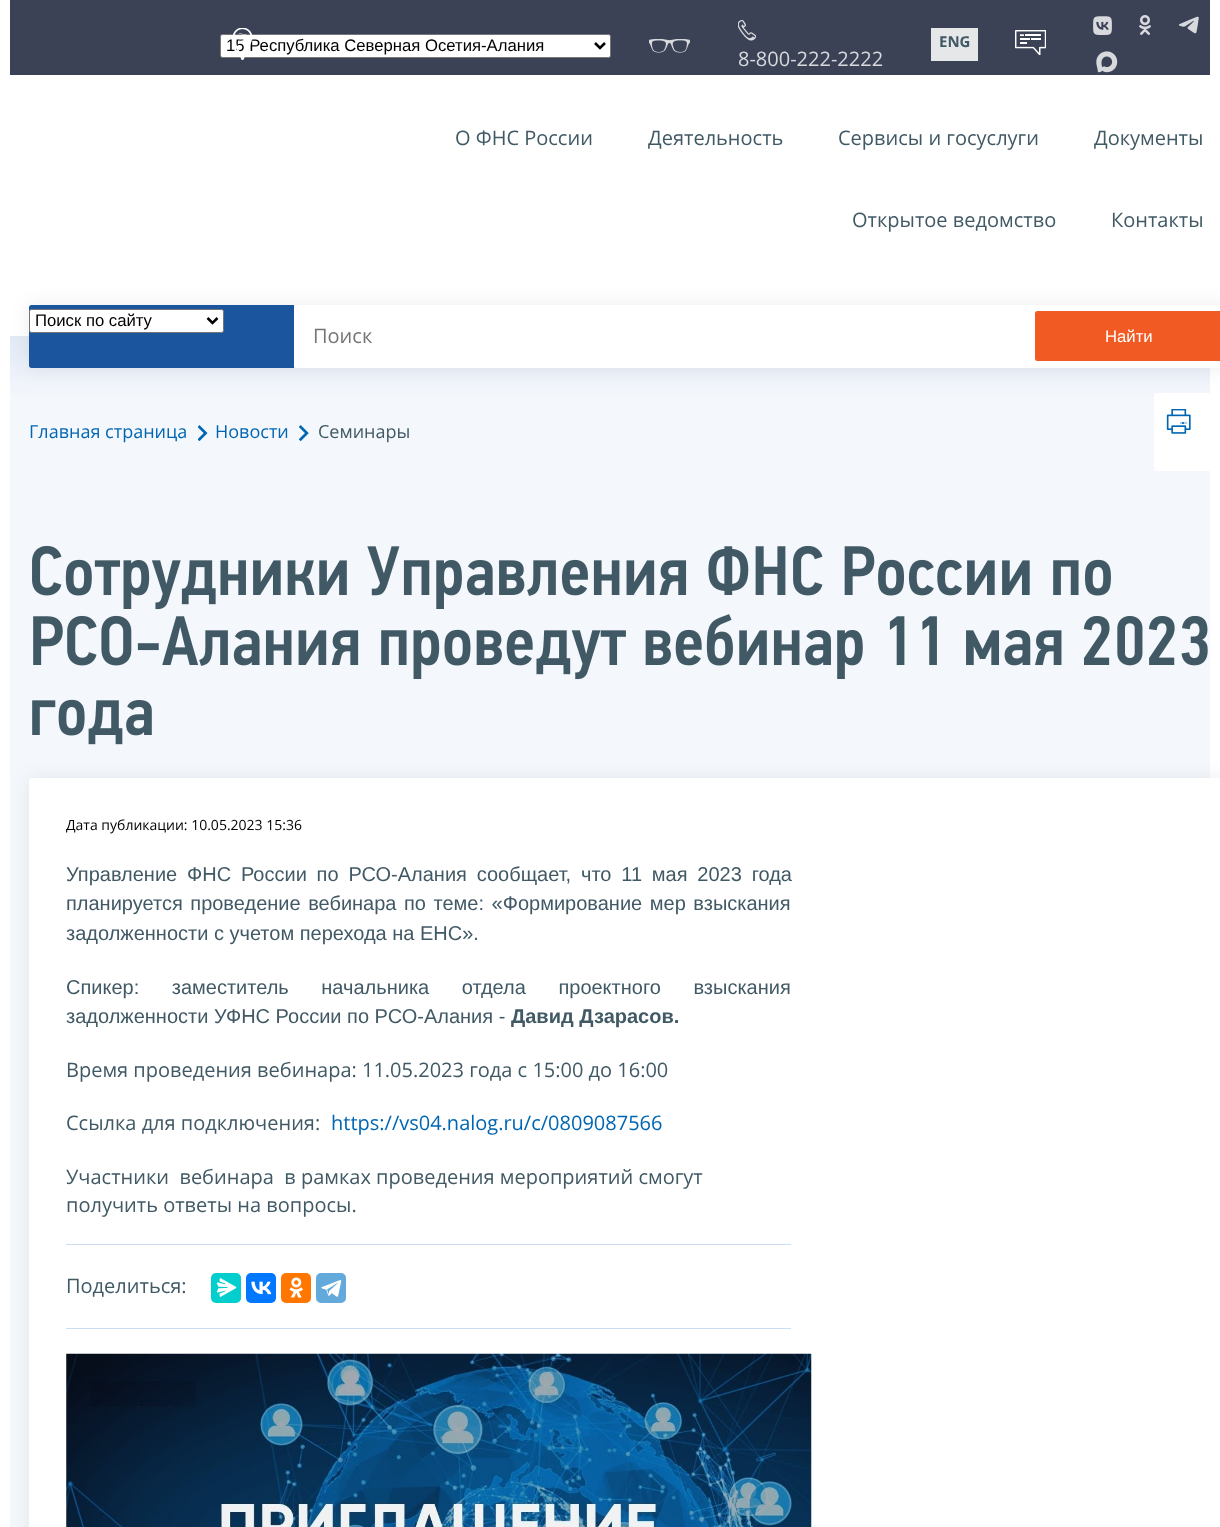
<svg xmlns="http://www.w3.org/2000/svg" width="1220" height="1527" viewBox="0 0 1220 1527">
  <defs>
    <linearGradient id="g1" gradientUnits="userSpaceOnUse" x1="610" y1="336" x2="610" y2="399"><stop offset="0" stop-color="#e2eaf6"/><stop offset="1" stop-color="#f4f7fc"/></linearGradient>
  </defs>
  <rect width="100%" height="100%" fill="#fff"/>
  <path d="M10 0h1200v75H10z" fill="#3b4256"/>
  <rect x="220.5" y="34.5" width="390" height="23" rx="2" fill="#fff" stroke="#767676"/>
  <path d="M595 43L600 48L605 43" fill="none" stroke="#000" stroke-width="2.5"/>
  <image x="649" y="39" width="41" height="14" href="img/2.png"/>
  <path d="M931 28h47v33H931z" fill="#e6e7e8"/>
  <image x="1015" y="30" width="31" height="25" href="img/3.png"/>
  <image x="1093" y="16" width="19" height="19" href="img/4.png"/>
  <image x="1139" y="15" width="12" height="20" href="img/5.png"/>
  <image x="1179" y="16" width="20" height="18" href="img/6.png"/>
  <image x="1096" y="51" width="22" height="22" href="img/7.png"/>
  <image x="738" y="20" width="18" height="21" href="img/8.png"/>
  <path d="M10 336h1200v63H10z" fill="url(#g1)"/>
  <path d="M10 399h1200v1128H10z" fill="#f4f7fc"/>
  <rect x="1154" y="393" width="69" height="78" rx="2.5" fill="#fff"/>
  <rect x="29" y="305" width="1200" height="63" rx="2.5" fill="#00000012" filter="blur(9.5px)"/>
  <path d="M31.5 305H294V368H31.5C30 368 29 367 29 365.5V307.5C29 306 30 305 31.5 305Z" fill="#1b559e"/>
  <rect x="29.5" y="309.5" width="194" height="23" rx="2" fill="#fff" stroke="#767676"/>
  <path d="M207.5 318L212.5 323L217.5 318" fill="none" stroke="#000" stroke-width="2.5"/>
  <rect x="294" y="305" width="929" height="63" rx="2.5" fill="#fff"/>
  <rect x="1035" y="311" width="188" height="50" rx="2.5" fill="#f15a22"/>
  <image x="198" y="425" width="10" height="16" href="img/9.png"/>
  <image x="299" y="425" width="10" height="16" href="img/10.png"/>
  <image x="1166" y="409" width="25" height="25" href="img/11.png"/>
  <image x="32" y="545" width="1079" height="65" href="img/12.png"/>
  <image x="33" y="614" width="1175" height="66" href="img/13.png"/>
  <image x="32" y="699" width="120" height="46" href="img/14.png"/>
  <rect x="29" y="778" width="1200" height="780" rx="2.5" fill="#00000012" filter="blur(9.5px)"/>
  <rect x="29" y="778" width="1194" height="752" rx="2.5" fill="#fff"/>
  <path d="M66 1244h725v1H66z" fill="#caddf2"/>
  <path d="M66 1328h725v1H66z" fill="#caddf2"/>
  <rect x="211" y="1273" width="30" height="30" rx="5" fill="#03cece"/>
  <image x="216" y="1278" width="21" height="19" href="img/15.png"/>
  <rect x="246" y="1273" width="30" height="30" rx="5" fill="#07f"/>
  <image x="251" y="1281" width="21" height="14" href="img/16.png"/>
  <rect x="281" y="1273" width="30" height="30" rx="5" fill="#f70"/>
  <image x="289" y="1277" width="14" height="21" href="img/17.png"/>
  <rect x="316" y="1273" width="30" height="30" rx="5" fill="#64a9dc"/>
  <image x="321" y="1280" width="21" height="17" href="img/18.png"/>
  <image x="66" y="1353" width="746" height="174" href="img/19.png"/>
  <text x="226" y="51" font-family="Liberation Sans" font-size="16.7" fill="#000">15 Республика Северная Осетия-Алания</text>
  <image x="233" y="28" width="20" height="32" href="img/1.png"/>
  <text x="939" y="47" font-family="Open Sans" font-size="15" font-weight="bold" fill="#405965">ENG</text>
  <text x="738" y="66" font-family="Open Sans" font-size="20" fill="#d8d9dd">8-800-222-2222</text>
  <g font-family="Open Sans" font-size="20" fill="#405965">
    <text x="455" y="145">О ФНС России</text>
    <text x="648" y="145">Деятельность</text>
    <text x="838" y="145">Сервисы и госуслуги</text>
    <text x="1094" y="145">Документы</text>
    <text x="852" y="227">Открытое ведомство</text>
    <text x="1111" y="227">Контакты</text>
  </g>
  <text x="35" y="326" font-family="Liberation Sans" font-size="16.7" fill="#000">Поиск по сайту</text>
  <text x="313" y="343" font-family="Open Sans" font-size="20" fill="#757575">Поиск</text>
  <text x="1105" y="342" font-family="Liberation Sans" font-size="16.7" fill="#fff">Найти</text>
  <g font-family="Open Sans" font-size="18" fill="#0066b3">
    <text x="29" y="438">Главная страница</text>
    <text x="215" y="438">Новости</text>
  </g>
  <text x="318" y="438" font-family="Open Sans" font-size="18" fill="#405965">Семинары</text>
  <text x="66" y="830" font-family="Open Sans" font-size="14" fill="#000">Дата публикации: 10.05.2023 15:36</text>
  <g font-family="Liberation Sans" font-size="20" fill="#405965">
    <text x="66" y="881" word-spacing="4.25">Управление ФНС России по РСО-Алания сообщает, что 11 мая 2023 года</text>
    <text x="66" y="910" word-spacing="2">планируется проведение вебинара по теме: «Формирование мер взыскания</text>
    <text x="66" y="940">задолженности с учетом перехода на ЕНС».</text>
    <text x="66" y="994" word-spacing="27">Спикер: заместитель начальника отдела проектного взыскания</text>
    <text x="66" y="1023">задолженности УФНС России по РСО-Алания -</text>
  </g>
  <text x="511" y="1023" font-family="Liberation Sans" font-size="20" font-weight="bold" fill="#405965">Давид Дзарасов.</text>
  <g font-family="Open Sans" font-size="20" fill="#405965">
    <text x="66" y="1077">Время проведения вебинара: 11.05.2023 года с 15:00 до 16:00</text>
    <text x="66" y="1130">Ссылка для подключения:</text>
  </g>
  <text x="331" y="1130" font-family="Open Sans" font-size="20" fill="#0066b3">https://vs04.nalog.ru/c/0809087566</text>
  <g font-family="Open Sans" font-size="20" fill="#405965">
    <text x="66" y="1184" xml:space="preserve">Участники  вебинара  в рамках проведения мероприятий смогут</text>
    <text x="66" y="1212">получить ответы на вопросы.</text>
    <text x="66" y="1293">Поделиться:</text>
  </g>
</svg>
